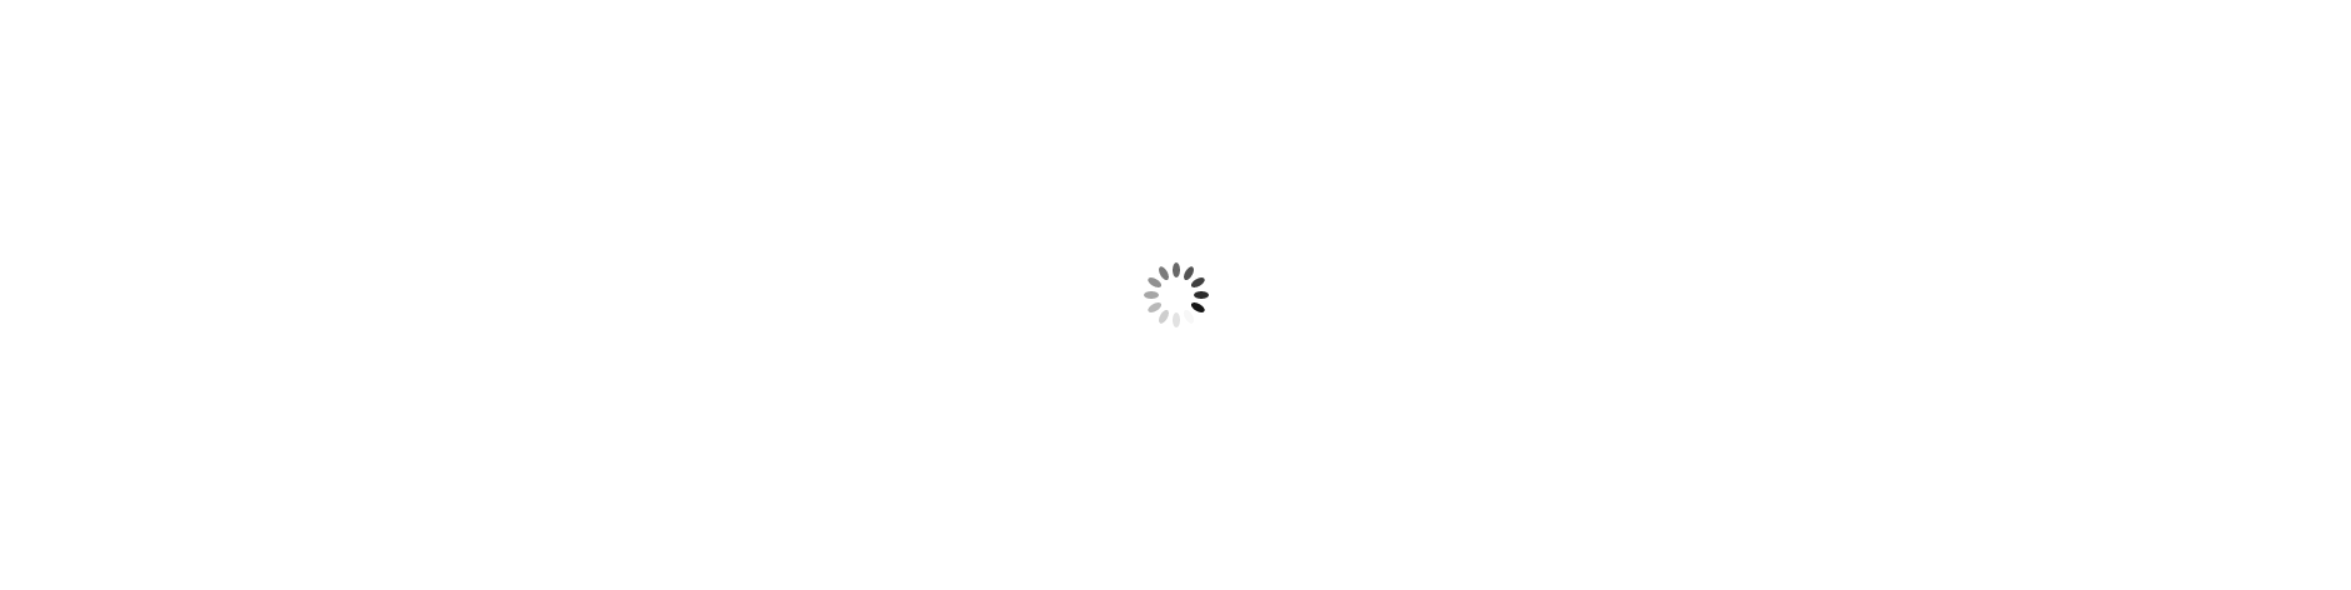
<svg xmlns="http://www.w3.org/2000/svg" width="2351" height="590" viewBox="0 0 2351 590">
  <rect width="100%" height="100%" fill="#fff"/>
  <image x="1143" y="262" width="66" height="66" href="img/1.png"/>
</svg>
